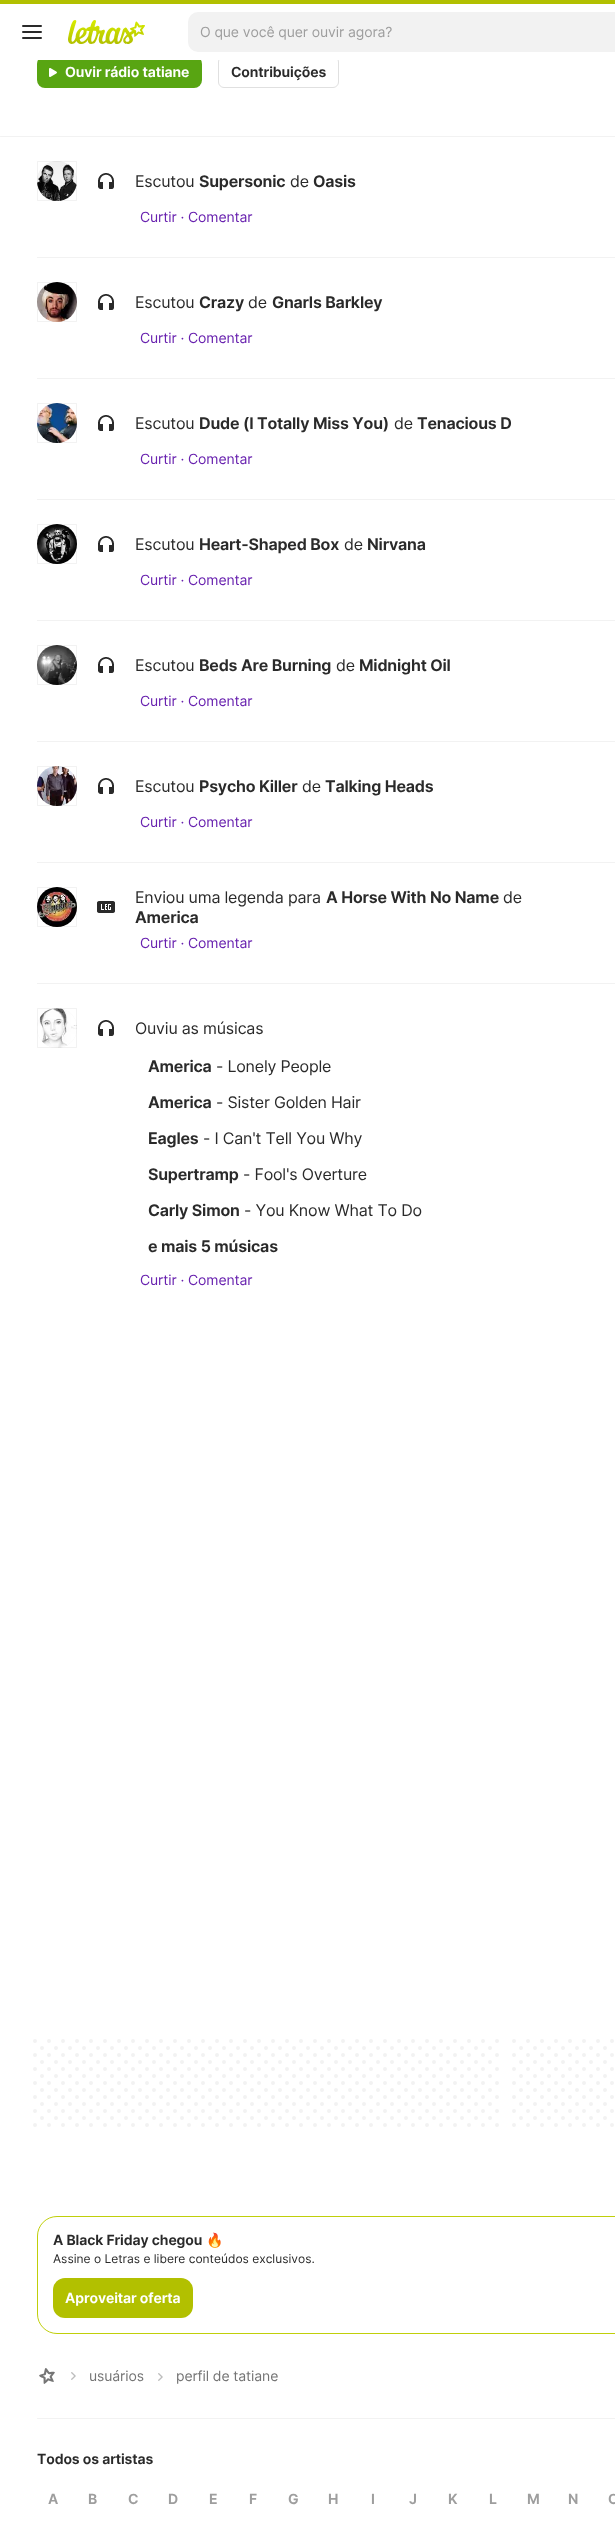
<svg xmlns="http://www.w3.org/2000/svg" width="615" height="2521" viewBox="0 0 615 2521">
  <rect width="100%" height="100%" fill="#fff"/>
  <rect x="37" y="56" width="165" height="32" rx="8" fill="#58a512"/>
  <rect x="218.5" y="56.5" width="120" height="31" rx="5.5" fill="none" stroke="#e0e0e0"/>
  <path d="M38 56h301v4H38z" fill="#fff"/>
  <path d="M0 0h615v4H0z" fill="#b2c000"/>
  <image x="22" y="25" width="20" height="14" href="img/1.png"/>
  <image x="68" y="20" width="77" height="24" href="img/2.png"/>
  <rect x="188" y="12" width="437" height="40" rx="10" fill="#f2f2f2"/>
  <image x="49" y="68" width="8" height="9" href="img/3.png"/>
  <rect y="136" width="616" height="1" rx="0.5" fill="#f2f2f2"/>
  <path d="M37 257h578v1H37z" fill="#f2f2f2"/>
  <circle cx="57" cy="181" r="20" fill="#f2f2f2"/>
  <image x="37" y="161" width="40" height="40" href="img/4.png"/>
  <path d="M37.5 161.5h39v39H37.5z" fill="none" stroke="#0000000d"/>
  <image x="98" y="173" width="16" height="16" href="img/5.png"/>
  <path d="M37 378h578v1H37z" fill="#f2f2f2"/>
  <circle cx="57" cy="302" r="20" fill="#f2f2f2"/>
  <image x="37" y="282" width="40" height="40" href="img/6.png"/>
  <path d="M37.5 282.5h39v39H37.5z" fill="none" stroke="#0000000d"/>
  <image x="98" y="294" width="16" height="16" href="img/5.png"/>
  <path d="M37 499h578v1H37z" fill="#f2f2f2"/>
  <circle cx="57" cy="423" r="20" fill="#f2f2f2"/>
  <image x="37" y="403" width="40" height="40" href="img/7.png"/>
  <path d="M37.5 403.5h39v39H37.5z" fill="none" stroke="#0000000d"/>
  <image x="98" y="415" width="16" height="16" href="img/5.png"/>
  <path d="M37 620h578v1H37z" fill="#f2f2f2"/>
  <circle cx="57" cy="544" r="20" fill="#f2f2f2"/>
  <image x="37" y="524" width="40" height="40" href="img/8.png"/>
  <path d="M37.5 524.5h39v39H37.5z" fill="none" stroke="#0000000d"/>
  <image x="98" y="536" width="16" height="16" href="img/5.png"/>
  <path d="M37 741h578v1H37z" fill="#f2f2f2"/>
  <circle cx="57" cy="665" r="20" fill="#f2f2f2"/>
  <image x="37" y="645" width="40" height="40" href="img/9.png"/>
  <path d="M37.5 645.5h39v39H37.5z" fill="none" stroke="#0000000d"/>
  <image x="98" y="657" width="16" height="16" href="img/5.png"/>
  <path d="M37 862h578v1H37z" fill="#f2f2f2"/>
  <circle cx="57" cy="786" r="20" fill="#f2f2f2"/>
  <image x="37" y="766" width="40" height="40" href="img/10.png"/>
  <path d="M37.5 766.5h39v39H37.5z" fill="none" stroke="#0000000d"/>
  <image x="98" y="778" width="16" height="16" href="img/5.png"/>
  <path d="M37 983h578v1H37z" fill="#f2f2f2"/>
  <circle cx="57" cy="907" r="20" fill="#f2f2f2"/>
  <image x="37" y="887" width="40" height="40" href="img/11.png"/>
  <path d="M37.5 887.5h39v39H37.5z" fill="none" stroke="#0000000d"/>
  <image x="97" y="901" width="18" height="12" href="img/12.png"/>
  <circle cx="57" cy="1028" r="20" fill="#f2f2f2"/>
  <image x="37" y="1008" width="40" height="40" href="img/13.png"/>
  <path d="M37.5 1008.5h39v39H37.5z" fill="none" stroke="#0000000d"/>
  <image x="98" y="1020" width="16" height="16" href="img/5.png"/>
  <path d="M35 2041H497.2" fill="none" stroke="#f2f2f2" stroke-width="4" stroke-linecap="round" stroke-dasharray="0 14"/>
  <path d="M35 2055H497.2" fill="none" stroke="#f2f2f2" stroke-width="4" stroke-linecap="round" stroke-dasharray="0 14"/>
  <path d="M35 2069H497.2" fill="none" stroke="#f2f2f2" stroke-width="4" stroke-linecap="round" stroke-dasharray="0 14"/>
  <path d="M35 2083H497.2" fill="none" stroke="#f2f2f2" stroke-width="4" stroke-linecap="round" stroke-dasharray="0 14"/>
  <path d="M35 2097H497.2" fill="none" stroke="#f2f2f2" stroke-width="4" stroke-linecap="round" stroke-dasharray="0 14"/>
  <path d="M35 2111H497.2" fill="none" stroke="#f2f2f2" stroke-width="4" stroke-linecap="round" stroke-dasharray="0 14"/>
  <path d="M35 2125H497.2" fill="none" stroke="#f2f2f2" stroke-width="4" stroke-linecap="round" stroke-dasharray="0 14"/>
  <path d="M42 2048H490.2" fill="none" stroke="#f2f2f2" stroke-width="4" stroke-linecap="round" stroke-dasharray="0 14"/>
  <path d="M42 2062H490.2" fill="none" stroke="#f2f2f2" stroke-width="4" stroke-linecap="round" stroke-dasharray="0 14"/>
  <path d="M42 2076H490.2" fill="none" stroke="#f2f2f2" stroke-width="4" stroke-linecap="round" stroke-dasharray="0 14"/>
  <path d="M42 2090H490.2" fill="none" stroke="#f2f2f2" stroke-width="4" stroke-linecap="round" stroke-dasharray="0 14"/>
  <path d="M42 2104H490.2" fill="none" stroke="#f2f2f2" stroke-width="4" stroke-linecap="round" stroke-dasharray="0 14"/>
  <path d="M42 2118H490.2" fill="none" stroke="#f2f2f2" stroke-width="4" stroke-linecap="round" stroke-dasharray="0 14"/>
  <path d="M514 2041H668.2" fill="none" stroke="#f2f2f2" stroke-width="4" stroke-linecap="round" stroke-dasharray="0 14"/>
  <path d="M514 2055H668.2" fill="none" stroke="#f2f2f2" stroke-width="4" stroke-linecap="round" stroke-dasharray="0 14"/>
  <path d="M514 2069H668.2" fill="none" stroke="#f2f2f2" stroke-width="4" stroke-linecap="round" stroke-dasharray="0 14"/>
  <path d="M514 2083H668.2" fill="none" stroke="#f2f2f2" stroke-width="4" stroke-linecap="round" stroke-dasharray="0 14"/>
  <path d="M514 2097H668.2" fill="none" stroke="#f2f2f2" stroke-width="4" stroke-linecap="round" stroke-dasharray="0 14"/>
  <path d="M514 2111H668.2" fill="none" stroke="#f2f2f2" stroke-width="4" stroke-linecap="round" stroke-dasharray="0 14"/>
  <path d="M514 2125H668.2" fill="none" stroke="#f2f2f2" stroke-width="4" stroke-linecap="round" stroke-dasharray="0 14"/>
  <path d="M521 2048H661.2" fill="none" stroke="#f2f2f2" stroke-width="4" stroke-linecap="round" stroke-dasharray="0 14"/>
  <path d="M521 2062H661.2" fill="none" stroke="#f2f2f2" stroke-width="4" stroke-linecap="round" stroke-dasharray="0 14"/>
  <path d="M521 2076H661.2" fill="none" stroke="#f2f2f2" stroke-width="4" stroke-linecap="round" stroke-dasharray="0 14"/>
  <path d="M521 2090H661.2" fill="none" stroke="#f2f2f2" stroke-width="4" stroke-linecap="round" stroke-dasharray="0 14"/>
  <path d="M521 2104H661.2" fill="none" stroke="#f2f2f2" stroke-width="4" stroke-linecap="round" stroke-dasharray="0 14"/>
  <path d="M521 2118H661.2" fill="none" stroke="#f2f2f2" stroke-width="4" stroke-linecap="round" stroke-dasharray="0 14"/>
  <rect x="37.5" y="2216.5" width="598" height="117" rx="19.5" fill="none" stroke="#c0cf0a"/>
  <rect x="53" y="2278" width="140" height="40" rx="12" fill="#b2c000"/>
  <image x="39" y="2368" width="16" height="16" href="img/14.png"/>
  <image x="71" y="2372" width="5" height="8" href="img/15.png"/>
  <image x="158" y="2373" width="5" height="8" href="img/15.png"/>
  <rect x="37" y="2418" width="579" height="1" rx="0.5" fill="#f2f2f2"/>
  <text x="200" y="37" font-family="Inter" font-size="14" letter-spacing="-0.1" fill="#9e9e9e">O que você quer ouvir agora?</text>
  <text x="65" y="77" font-family="Inter" font-size="14" font-weight="600" letter-spacing="-0.1" fill="#fff">Ouvir rádio tatiane</text>
  <text x="231" y="77" font-family="Inter" font-size="14" font-weight="600" letter-spacing="-0.1" fill="#2a2a2a">Contribuições</text>
  <text x="135" y="187" font-family="Inter" font-size="16" letter-spacing="-0.2" fill="#2a2a2a">Escutou</text>
  <text x="199" y="187" font-family="Inter" font-size="16" font-weight="600" letter-spacing="-0.2" fill="#2a2a2a">Supersonic</text>
  <text x="290" y="187" font-family="Inter" font-size="16" letter-spacing="-0.2" fill="#2a2a2a">de</text>
  <text x="313" y="187" font-family="Inter" font-size="16" font-weight="600" letter-spacing="-0.2" fill="#2a2a2a">Oasis</text>
  <text x="140" y="222" font-family="Inter" font-size="14" letter-spacing="-0.1" fill="#6821af">Curtir · Comentar</text>
  <text x="135" y="308" font-family="Inter" font-size="16" letter-spacing="-0.2" fill="#2a2a2a">Escutou</text>
  <text x="199" y="308" font-family="Inter" font-size="16" font-weight="600" letter-spacing="-0.2" fill="#2a2a2a">Crazy</text>
  <text x="248" y="308" font-family="Inter" font-size="16" letter-spacing="-0.2" fill="#2a2a2a">de</text>
  <text x="272" y="308" font-family="Inter" font-size="16" font-weight="600" letter-spacing="-0.2" fill="#2a2a2a">Gnarls Barkley</text>
  <text x="140" y="343" font-family="Inter" font-size="14" letter-spacing="-0.1" fill="#6821af">Curtir · Comentar</text>
  <text x="135" y="429" font-family="Inter" font-size="16" letter-spacing="-0.2" fill="#2a2a2a">Escutou</text>
  <text x="199" y="429" font-family="Inter" font-size="16" font-weight="600" letter-spacing="-0.2" fill="#2a2a2a">Dude (I Totally Miss You)</text>
  <text x="394" y="429" font-family="Inter" font-size="16" letter-spacing="-0.2" fill="#2a2a2a">de</text>
  <text x="417" y="429" font-family="Inter" font-size="16" font-weight="600" letter-spacing="-0.2" fill="#2a2a2a">Tenacious D</text>
  <text x="140" y="464" font-family="Inter" font-size="14" letter-spacing="-0.1" fill="#6821af">Curtir · Comentar</text>
  <text x="135" y="550" font-family="Inter" font-size="16" letter-spacing="-0.2" fill="#2a2a2a">Escutou</text>
  <text x="199" y="550" font-family="Inter" font-size="16" font-weight="600" letter-spacing="-0.2" fill="#2a2a2a">Heart-Shaped Box</text>
  <text x="344" y="550" font-family="Inter" font-size="16" letter-spacing="-0.2" fill="#2a2a2a">de</text>
  <text x="367" y="550" font-family="Inter" font-size="16" font-weight="600" letter-spacing="-0.2" fill="#2a2a2a">Nirvana</text>
  <text x="140" y="585" font-family="Inter" font-size="14" letter-spacing="-0.1" fill="#6821af">Curtir · Comentar</text>
  <text x="135" y="671" font-family="Inter" font-size="16" letter-spacing="-0.2" fill="#2a2a2a">Escutou</text>
  <text x="199" y="671" font-family="Inter" font-size="16" font-weight="600" letter-spacing="-0.2" fill="#2a2a2a">Beds Are Burning</text>
  <text x="336" y="671" font-family="Inter" font-size="16" letter-spacing="-0.2" fill="#2a2a2a">de</text>
  <text x="359" y="671" font-family="Inter" font-size="16" font-weight="600" letter-spacing="-0.2" fill="#2a2a2a">Midnight Oil</text>
  <text x="140" y="706" font-family="Inter" font-size="14" letter-spacing="-0.1" fill="#6821af">Curtir · Comentar</text>
  <text x="135" y="792" font-family="Inter" font-size="16" letter-spacing="-0.2" fill="#2a2a2a">Escutou</text>
  <text x="199" y="792" font-family="Inter" font-size="16" font-weight="600" letter-spacing="-0.2" fill="#2a2a2a">Psycho Killer</text>
  <text x="302" y="792" font-family="Inter" font-size="16" letter-spacing="-0.2" fill="#2a2a2a">de</text>
  <text x="325" y="792" font-family="Inter" font-size="16" font-weight="600" letter-spacing="-0.2" fill="#2a2a2a">Talking Heads</text>
  <text x="140" y="827" font-family="Inter" font-size="14" letter-spacing="-0.1" fill="#6821af">Curtir · Comentar</text>
  <text x="135" y="903" font-family="Inter" font-size="16" letter-spacing="-0.2" fill="#2a2a2a">Enviou uma legenda para</text>
  <text x="326" y="903" font-family="Inter" font-size="16" font-weight="600" letter-spacing="-0.2" fill="#2a2a2a">A Horse With No Name</text>
  <text x="503" y="903" font-family="Inter" font-size="16" letter-spacing="-0.2" fill="#2a2a2a">de</text>
  <text x="135" y="923" font-family="Inter" font-size="16" font-weight="600" letter-spacing="-0.2" fill="#2a2a2a">America</text>
  <text x="140" y="948" font-family="Inter" font-size="14" letter-spacing="-0.1" fill="#6821af">Curtir · Comentar</text>
  <text x="135" y="1034" font-family="Inter" font-size="16" letter-spacing="-0.2" fill="#2a2a2a">Ouviu as músicas</text>
  <text x="148" y="1072" font-family="Inter" font-size="16" font-weight="600" letter-spacing="-0.2" fill="#2a2a2a">America</text>
  <text x="216" y="1072" font-family="Inter" font-size="16" letter-spacing="-0.2" fill="#2a2a2a">- Lonely People</text>
  <text x="148" y="1108" font-family="Inter" font-size="16" font-weight="600" letter-spacing="-0.2" fill="#2a2a2a">America</text>
  <text x="216" y="1108" font-family="Inter" font-size="16" letter-spacing="-0.2" fill="#2a2a2a">- Sister Golden Hair</text>
  <text x="148" y="1144" font-family="Inter" font-size="16" font-weight="600" letter-spacing="-0.2" fill="#2a2a2a">Eagles</text>
  <text x="203" y="1144" font-family="Inter" font-size="16" letter-spacing="-0.2" fill="#2a2a2a">- I Can't Tell You Why</text>
  <text x="148" y="1180" font-family="Inter" font-size="16" font-weight="600" letter-spacing="-0.2" fill="#2a2a2a">Supertramp</text>
  <text x="243" y="1180" font-family="Inter" font-size="16" letter-spacing="-0.2" fill="#2a2a2a">- Fool's Overture</text>
  <text x="148" y="1216" font-family="Inter" font-size="16" font-weight="600" letter-spacing="-0.2" fill="#2a2a2a">Carly Simon</text>
  <text x="244" y="1216" font-family="Inter" font-size="16" letter-spacing="-0.2" fill="#2a2a2a">- You Know What To Do</text>
  <text x="148" y="1252" font-family="Inter" font-size="16" font-weight="600" letter-spacing="-0.2" fill="#2a2a2a">e mais 5 músicas</text>
  <text x="140" y="1285" font-family="Inter" font-size="14" letter-spacing="-0.1" fill="#6821af">Curtir · Comentar</text>
  <text x="53" y="2245" font-family="Inter" font-size="14" font-weight="600" letter-spacing="-0.1" fill="#2a2a2a">A Black Friday chegou</text>
  <text x="206" y="2245" font-family="Noto Color Emoji" font-size="14" font-weight="bold" letter-spacing="-0.1" fill="#2a2a2a">🔥</text>
  <text x="53" y="2263" font-family="Inter" font-size="12" fill="#2a2a2a">Assine o Letras e libere conteúdos exclusivos.</text>
  <text x="65" y="2303" font-family="Inter" font-size="14" font-weight="600" letter-spacing="-0.1" fill="#fff">Aproveitar oferta</text>
  <g font-family="Inter" font-size="14" letter-spacing="-0.1" fill="#757575">
    <text x="89" y="2381">usuários</text>
    <text x="176" y="2381">perfil de tatiane</text>
  </g>
  <text x="37" y="2464" font-family="Inter" font-size="14" font-weight="600" letter-spacing="-0.1" fill="#2a2a2a">Todos os artistas</text>
  <g font-family="Inter" font-size="14" font-weight="600" letter-spacing="-0.1" fill="#9e9e9e">
    <text x="48" y="2504">A</text>
    <text x="88" y="2504">B</text>
    <text x="128" y="2504">C</text>
    <text x="168" y="2504">D</text>
    <text x="209" y="2504">E</text>
    <text x="249" y="2504">F</text>
    <text x="288" y="2504">G</text>
    <text x="328" y="2504">H</text>
    <text x="371" y="2504">I</text>
    <text x="409" y="2504">J</text>
    <text x="448" y="2504">K</text>
    <text x="489" y="2504">L</text>
    <text x="527" y="2504">M</text>
    <text x="568" y="2504">N</text>
    <text x="608" y="2504">O</text>
  </g>
</svg>
